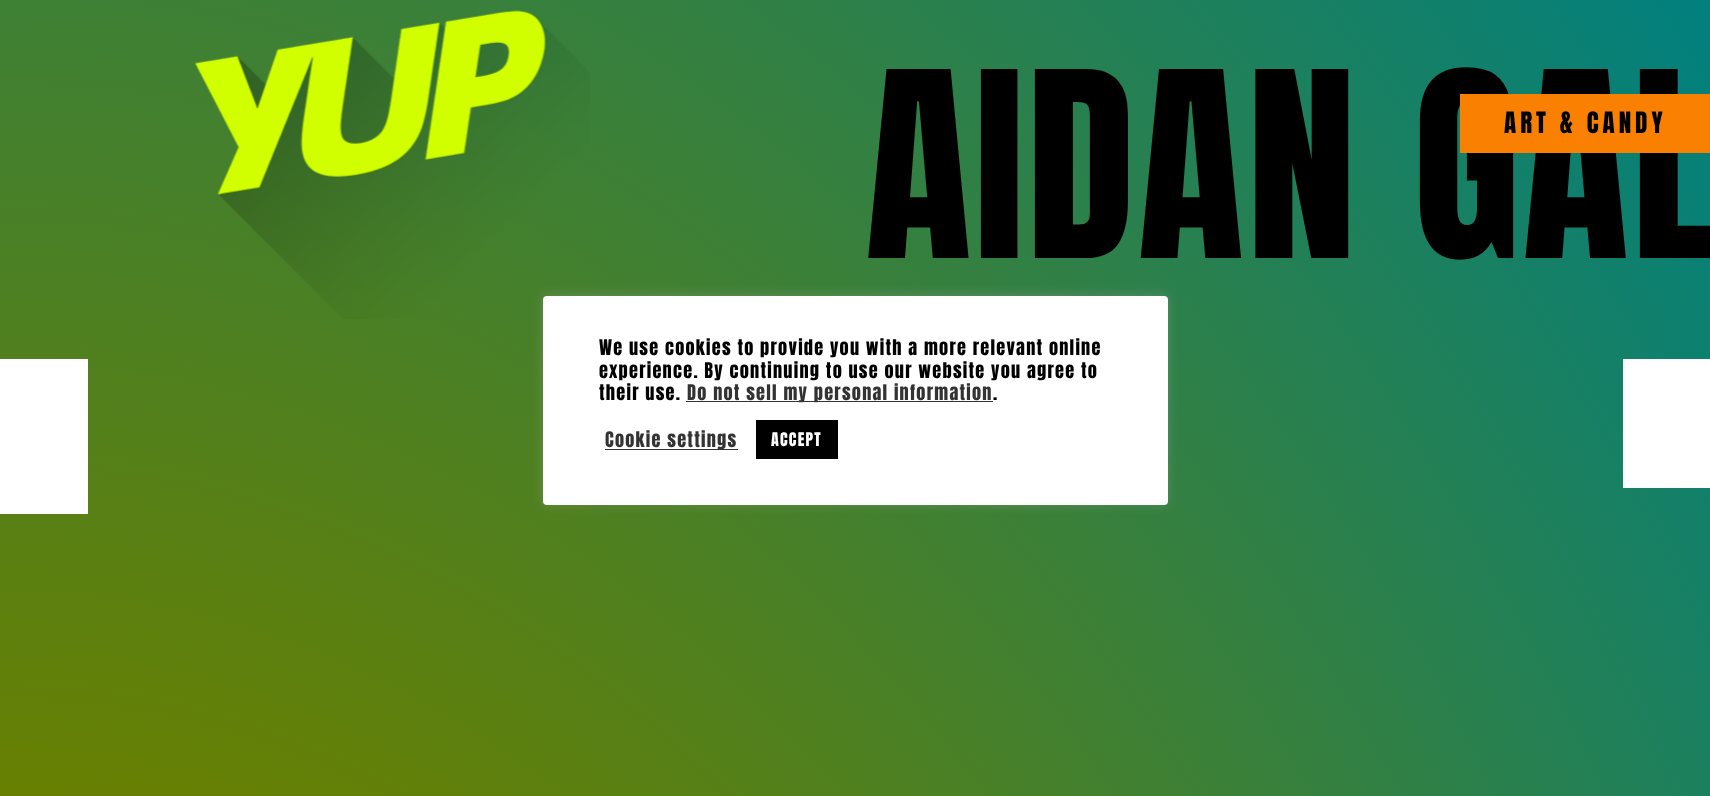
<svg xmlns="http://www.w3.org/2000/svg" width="1710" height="796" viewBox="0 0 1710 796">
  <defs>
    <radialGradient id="g1" gradientUnits="userSpaceOnUse" cx="0" cy="0" r="1" gradientTransform="matrix(2418 0 0 4000 0 2829)"><stop offset="0" stop-color="#803700"/><stop offset="0.5" stop-color="#698000"/><stop offset="1" stop-color="#01807f"/></radialGradient>
  </defs>
  <rect width="100%" height="100%" fill="#fff"/>
  <path d="M0 0h1710v796H0z" fill="url(#g1)"/>
  <image x="194" y="10" width="396" height="309" href="img/1.png"/>
  <rect x="543" y="295" width="625" height="209" rx="4" fill="#acabab4d" filter="blur(6px)"/>
  <rect x="543" y="296" width="625" height="209" rx="4" fill="#fff"/>
  <path d="M686 401h307v1H686z" fill="#333"/>
  <path d="M605 449h133v1H605z" fill="#333"/>
  <path d="M756 420h82v39H756z" fill="#000"/>
  <path d="M0 359h88v155H0z" fill="#fff"/>
  <path d="M1623 359h87v129H1623z" fill="#fff"/>
  <text x="865" y="258" font-family="Anton" font-size="220" letter-spacing="2.5" fill="#000">AIDAN GAL</text>
  <path d="M1460 94h250v59H1460z" fill="#fa8001"/>
  <text x="1504" y="133" font-family="Anton" font-size="25" letter-spacing="4" fill="#000">ART &amp; CANDY</text>
  <g font-family="Anton" font-size="18.3" letter-spacing="1.25" fill="#000">
    <text x="599" y="355">We use cookies to provide you with a more relevant online</text>
    <text x="599" y="378">experience. By continuing to use our website you agree to</text>
    <text x="599" y="400">their use.</text>
  </g>
  <text x="687" y="400" font-family="Anton" font-size="18.3" letter-spacing="1.25" fill="#333">Do not sell my personal information</text>
  <text x="993" y="400" font-family="Anton" font-size="18.3" letter-spacing="1.25" fill="#000">.</text>
  <text x="605" y="447" font-family="Anton" font-size="18.3" letter-spacing="1.25" fill="#333">Cookie settings</text>
  <text x="771" y="446" font-family="Anton" font-size="16" letter-spacing="1.25" fill="#fff">ACCEPT</text>
</svg>
